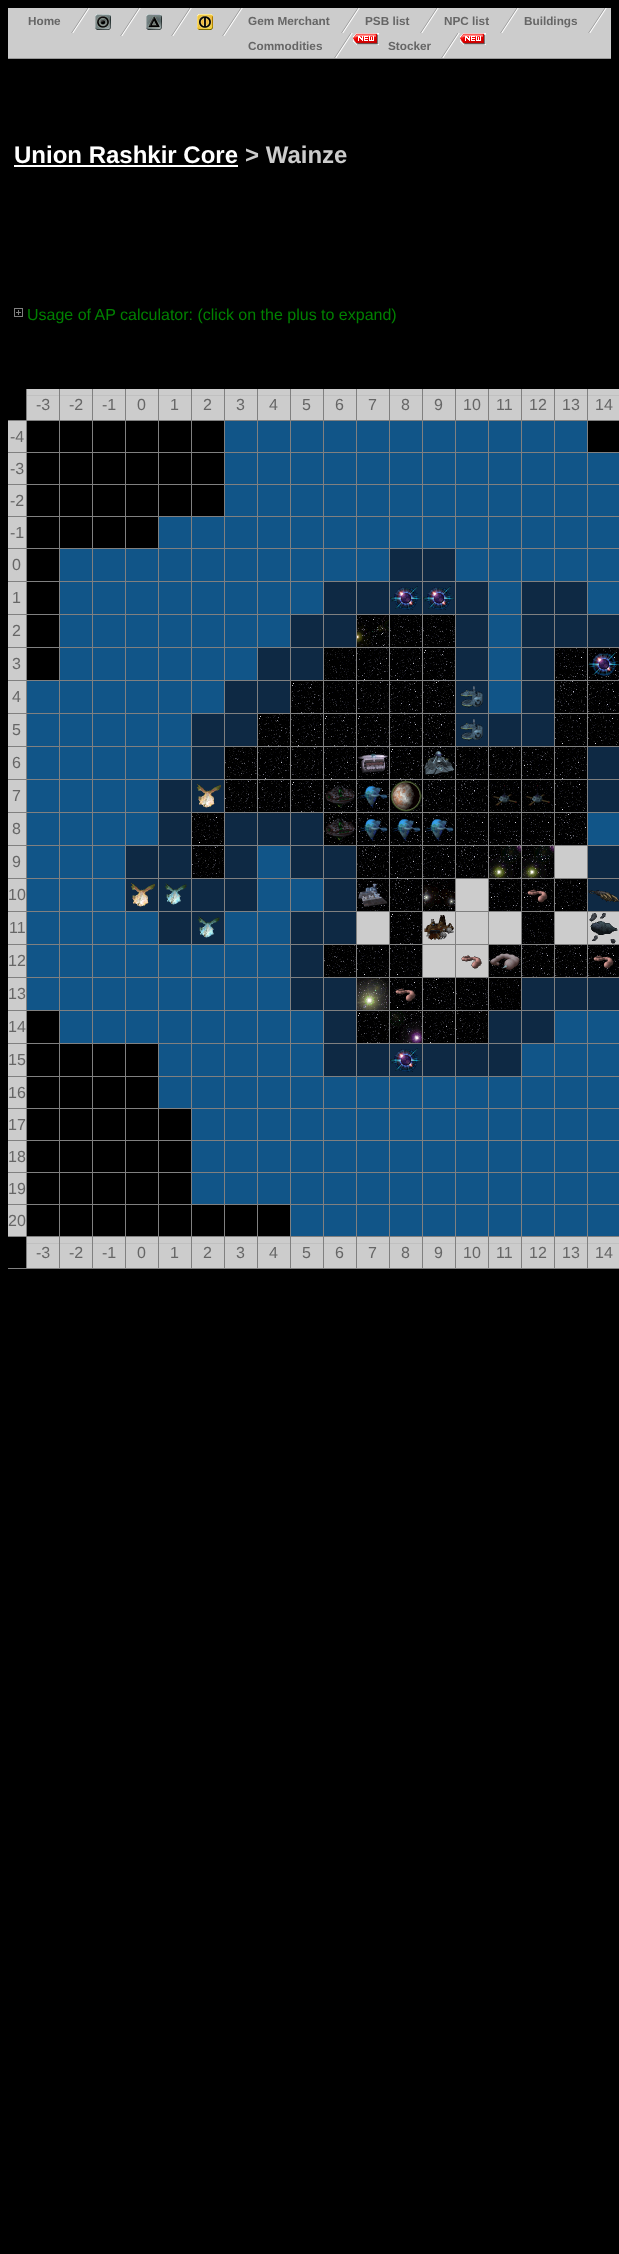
<svg xmlns="http://www.w3.org/2000/svg" width="619" height="2254" viewBox="0 0 619 2254">
  <rect width="100%" height="100%" fill="#000"/>
  <path d="M8 8h603v50H8z" fill="#ccc"/>
  <path d="M8 58h603v1H8z" fill="#999"/>
  <image x="71" y="8" width="19" height="25" href="img/1.png"/>
  <image x="120" y="8" width="21" height="28" href="img/2.png"/>
  <image x="95" y="14" width="16" height="16" href="img/3.png"/>
  <image x="171" y="8" width="21" height="28" href="img/2.png"/>
  <image x="146" y="14" width="16" height="16" href="img/4.png"/>
  <image x="222" y="8" width="21" height="28" href="img/2.png"/>
  <image x="197" y="14" width="16" height="16" href="img/5.png"/>
  <image x="341" y="8" width="19" height="25" href="img/1.png"/>
  <image x="420" y="8" width="19" height="25" href="img/1.png"/>
  <image x="500" y="8" width="19" height="25" href="img/1.png"/>
  <image x="588" y="8" width="19" height="25" href="img/1.png"/>
  <image x="353" y="33" width="26" height="12" href="img/6.png"/>
  <image x="334" y="33" width="19" height="25" href="img/1.png"/>
  <image x="460" y="33" width="26" height="12" href="img/6.png"/>
  <image x="441" y="33" width="19" height="25" href="img/1.png"/>
  <path d="M14 165h224v2H14z" fill="#fff"/>
  <image x="14" y="308" width="9" height="9" href="img/7.png"/>
  <path d="M26 389h1v325H26z" fill="#808080"/>
  <path d="M8 420h19v1H8z" fill="#808080"/>
  <path d="M27 389h32v31H27z" fill="#ccc"/>
  <path d="M59 389h1v325H59z" fill="#808080"/>
  <path d="M27 420h33v1H27z" fill="#808080"/>
  <path d="M27 395h32v1H27z" fill="#c0c0c0"/>
  <path d="M60 389h32v31H60z" fill="#ccc"/>
  <path d="M92 389h1v325H92z" fill="#808080"/>
  <path d="M60 420h33v1H60z" fill="#808080"/>
  <path d="M60 395h32v1H60z" fill="#c0c0c0"/>
  <path d="M93 389h32v31H93z" fill="#ccc"/>
  <path d="M125 389h1v325H125z" fill="#808080"/>
  <path d="M93 420h33v1H93z" fill="#808080"/>
  <path d="M93 395h32v1H93z" fill="#c0c0c0"/>
  <path d="M126 389h32v31H126z" fill="#ccc"/>
  <path d="M158 389h1v325H158z" fill="#808080"/>
  <path d="M126 420h33v1H126z" fill="#808080"/>
  <path d="M126 395h32v1H126z" fill="#c0c0c0"/>
  <path d="M159 389h32v31H159z" fill="#ccc"/>
  <path d="M191 389h1v325H191z" fill="#808080"/>
  <path d="M159 420h33v1H159z" fill="#808080"/>
  <path d="M159 395h32v1H159z" fill="#c0c0c0"/>
  <path d="M192 389h32v31H192z" fill="#ccc"/>
  <path d="M224 389h1v325H224z" fill="#808080"/>
  <path d="M192 420h33v1H192z" fill="#808080"/>
  <path d="M192 395h32v1H192z" fill="#c0c0c0"/>
  <path d="M225 389h32v31H225z" fill="#ccc"/>
  <path d="M257 389h1v325H257z" fill="#808080"/>
  <path d="M225 420h33v1H225z" fill="#808080"/>
  <path d="M225 395h32v1H225z" fill="#c0c0c0"/>
  <path d="M258 389h32v31H258z" fill="#ccc"/>
  <path d="M290 389h1v325H290z" fill="#808080"/>
  <path d="M258 420h33v1H258z" fill="#808080"/>
  <path d="M258 395h32v1H258z" fill="#c0c0c0"/>
  <path d="M291 389h32v31H291z" fill="#ccc"/>
  <path d="M323 389h1v325H323z" fill="#808080"/>
  <path d="M291 420h33v1H291z" fill="#808080"/>
  <path d="M291 395h32v1H291z" fill="#c0c0c0"/>
  <path d="M324 389h32v31H324z" fill="#ccc"/>
  <path d="M356 389h1v325H356z" fill="#808080"/>
  <path d="M324 420h33v1H324z" fill="#808080"/>
  <path d="M324 395h32v1H324z" fill="#c0c0c0"/>
  <path d="M357 389h32v31H357z" fill="#ccc"/>
  <path d="M389 389h1v325H389z" fill="#808080"/>
  <path d="M357 420h33v1H357z" fill="#808080"/>
  <path d="M357 395h32v1H357z" fill="#c0c0c0"/>
  <path d="M390 389h32v31H390z" fill="#ccc"/>
  <path d="M422 389h1v325H422z" fill="#808080"/>
  <path d="M390 420h33v1H390z" fill="#808080"/>
  <path d="M390 395h32v1H390z" fill="#c0c0c0"/>
  <path d="M423 389h32v31H423z" fill="#ccc"/>
  <path d="M455 389h1v325H455z" fill="#808080"/>
  <path d="M423 420h33v1H423z" fill="#808080"/>
  <path d="M423 395h32v1H423z" fill="#c0c0c0"/>
  <path d="M456 389h32v31H456z" fill="#ccc"/>
  <path d="M488 389h1v325H488z" fill="#808080"/>
  <path d="M456 420h33v1H456z" fill="#808080"/>
  <path d="M456 395h32v1H456z" fill="#c0c0c0"/>
  <path d="M489 389h32v31H489z" fill="#ccc"/>
  <path d="M521 389h1v325H521z" fill="#808080"/>
  <path d="M489 420h33v1H489z" fill="#808080"/>
  <path d="M489 395h32v1H489z" fill="#c0c0c0"/>
  <path d="M522 389h32v31H522z" fill="#ccc"/>
  <path d="M554 389h1v325H554z" fill="#808080"/>
  <path d="M522 420h33v1H522z" fill="#808080"/>
  <path d="M522 395h32v1H522z" fill="#c0c0c0"/>
  <path d="M555 389h32v31H555z" fill="#ccc"/>
  <path d="M587 389h1v325H587z" fill="#808080"/>
  <path d="M555 420h64v1H555z" fill="#808080"/>
  <path d="M555 395h32v1H555z" fill="#c0c0c0"/>
  <path d="M588 389h31v31H588z" fill="#ccc"/>
  <path d="M588 395h31v1H588z" fill="#c0c0c0"/>
  <path d="M8 421h18v31H8z" fill="#ccc"/>
  <path d="M8 452h611v1H8z" fill="#808080"/>
  <path d="M225 421h32v31H225z" fill="#158"/>
  <path d="M258 421h32v31H258z" fill="#158"/>
  <path d="M291 421h32v31H291z" fill="#158"/>
  <path d="M324 421h32v31H324z" fill="#158"/>
  <path d="M357 421h32v31H357z" fill="#158"/>
  <path d="M390 421h32v31H390z" fill="#158"/>
  <path d="M423 421h32v31H423z" fill="#158"/>
  <path d="M456 421h32v31H456z" fill="#158"/>
  <path d="M489 421h32v31H489z" fill="#158"/>
  <path d="M522 421h32v31H522z" fill="#158"/>
  <path d="M555 421h32v31H555z" fill="#158"/>
  <path d="M8 453h18v31H8z" fill="#ccc"/>
  <path d="M8 484h611v1H8z" fill="#808080"/>
  <path d="M225 453h32v31H225z" fill="#158"/>
  <path d="M258 453h32v31H258z" fill="#158"/>
  <path d="M291 453h32v31H291z" fill="#158"/>
  <path d="M324 453h32v31H324z" fill="#158"/>
  <path d="M357 453h32v31H357z" fill="#158"/>
  <path d="M390 453h32v31H390z" fill="#158"/>
  <path d="M423 453h32v31H423z" fill="#158"/>
  <path d="M456 453h32v31H456z" fill="#158"/>
  <path d="M489 453h32v31H489z" fill="#158"/>
  <path d="M522 453h32v31H522z" fill="#158"/>
  <path d="M555 453h32v31H555z" fill="#158"/>
  <path d="M588 453h31v31H588z" fill="#158"/>
  <path d="M8 485h18v31H8z" fill="#ccc"/>
  <path d="M8 516h611v1H8z" fill="#808080"/>
  <path d="M225 485h32v31H225z" fill="#158"/>
  <path d="M258 485h32v31H258z" fill="#158"/>
  <path d="M291 485h32v31H291z" fill="#158"/>
  <path d="M324 485h32v31H324z" fill="#158"/>
  <path d="M357 485h32v31H357z" fill="#158"/>
  <path d="M390 485h32v31H390z" fill="#158"/>
  <path d="M423 485h32v31H423z" fill="#158"/>
  <path d="M456 485h32v31H456z" fill="#158"/>
  <path d="M489 485h32v31H489z" fill="#158"/>
  <path d="M522 485h32v31H522z" fill="#158"/>
  <path d="M555 485h32v31H555z" fill="#158"/>
  <path d="M588 485h31v31H588z" fill="#158"/>
  <path d="M8 517h18v31H8z" fill="#ccc"/>
  <path d="M8 548h611v1H8z" fill="#808080"/>
  <path d="M159 517h32v31H159z" fill="#158"/>
  <path d="M192 517h32v31H192z" fill="#158"/>
  <path d="M225 517h32v31H225z" fill="#158"/>
  <path d="M258 517h32v31H258z" fill="#158"/>
  <path d="M291 517h32v31H291z" fill="#158"/>
  <path d="M324 517h32v31H324z" fill="#158"/>
  <path d="M357 517h32v31H357z" fill="#158"/>
  <path d="M390 517h32v31H390z" fill="#158"/>
  <path d="M423 517h32v31H423z" fill="#158"/>
  <path d="M456 517h32v31H456z" fill="#158"/>
  <path d="M489 517h32v31H489z" fill="#158"/>
  <path d="M522 517h32v31H522z" fill="#158"/>
  <path d="M555 517h32v31H555z" fill="#158"/>
  <path d="M588 517h31v31H588z" fill="#158"/>
  <path d="M8 549h18v32H8z" fill="#ccc"/>
  <path d="M8 581h611v1H8z" fill="#808080"/>
  <path d="M60 549h32v32H60z" fill="#158"/>
  <path d="M93 549h32v32H93z" fill="#158"/>
  <path d="M126 549h32v32H126z" fill="#158"/>
  <path d="M159 549h32v32H159z" fill="#158"/>
  <path d="M192 549h32v32H192z" fill="#158"/>
  <path d="M225 549h32v32H225z" fill="#158"/>
  <path d="M258 549h32v32H258z" fill="#158"/>
  <path d="M291 549h32v32H291z" fill="#158"/>
  <path d="M324 549h32v32H324z" fill="#158"/>
  <path d="M357 549h32v32H357z" fill="#158"/>
  <path d="M390 549h32v32H390z" fill="#0e2944"/>
  <path d="M423 549h32v32H423z" fill="#0e2944"/>
  <path d="M456 549h32v32H456z" fill="#158"/>
  <path d="M489 549h32v32H489z" fill="#158"/>
  <path d="M522 549h32v32H522z" fill="#158"/>
  <path d="M555 549h32v32H555z" fill="#158"/>
  <path d="M588 549h31v32H588z" fill="#158"/>
  <path d="M8 582h18v32H8z" fill="#ccc"/>
  <path d="M8 614h611v1H8z" fill="#808080"/>
  <path d="M60 582h32v32H60z" fill="#158"/>
  <path d="M93 582h32v32H93z" fill="#158"/>
  <path d="M126 582h32v32H126z" fill="#158"/>
  <path d="M159 582h32v32H159z" fill="#158"/>
  <path d="M192 582h32v32H192z" fill="#158"/>
  <path d="M225 582h32v32H225z" fill="#158"/>
  <path d="M258 582h32v32H258z" fill="#158"/>
  <path d="M291 582h32v32H291z" fill="#158"/>
  <path d="M324 582h32v32H324z" fill="#0e2944"/>
  <path d="M357 582h32v32H357z" fill="#0e2944"/>
  <path d="M390 582h32v32H390z" fill="#0e2944"/>
  <image x="390" y="586" width="31" height="24" href="img/8.png"/>
  <path d="M423 582h32v32H423z" fill="#0e2944"/>
  <image x="423" y="586" width="31" height="24" href="img/8.png"/>
  <path d="M456 582h32v32H456z" fill="#0e2944"/>
  <path d="M489 582h32v32H489z" fill="#158"/>
  <path d="M522 582h32v32H522z" fill="#0e2944"/>
  <path d="M555 582h32v32H555z" fill="#0e2944"/>
  <path d="M588 582h31v32H588z" fill="#158"/>
  <path d="M8 615h18v32H8z" fill="#ccc"/>
  <path d="M8 647h611v1H8z" fill="#808080"/>
  <path d="M60 615h32v32H60z" fill="#158"/>
  <path d="M93 615h32v32H93z" fill="#158"/>
  <path d="M126 615h32v32H126z" fill="#158"/>
  <path d="M159 615h32v32H159z" fill="#158"/>
  <path d="M192 615h32v32H192z" fill="#158"/>
  <path d="M225 615h32v32H225z" fill="#158"/>
  <path d="M258 615h32v32H258z" fill="#158"/>
  <path d="M291 615h32v32H291z" fill="#0e2944"/>
  <path d="M324 615h32v32H324z" fill="#0e2944"/>
  <image x="357" y="615" width="32" height="32" href="img/9.png"/>
  <image x="390" y="615" width="32" height="32" href="img/10.png"/>
  <image x="423" y="615" width="32" height="32" href="img/10.png"/>
  <path d="M456 615h32v32H456z" fill="#0e2944"/>
  <path d="M489 615h32v32H489z" fill="#158"/>
  <path d="M522 615h32v32H522z" fill="#0e2944"/>
  <path d="M555 615h32v32H555z" fill="#0e2944"/>
  <path d="M588 615h31v32H588z" fill="#0e2944"/>
  <path d="M8 648h18v32H8z" fill="#ccc"/>
  <path d="M8 680h611v1H8z" fill="#808080"/>
  <path d="M60 648h32v32H60z" fill="#158"/>
  <path d="M93 648h32v32H93z" fill="#158"/>
  <path d="M126 648h32v32H126z" fill="#158"/>
  <path d="M159 648h32v32H159z" fill="#158"/>
  <path d="M192 648h32v32H192z" fill="#158"/>
  <path d="M225 648h32v32H225z" fill="#158"/>
  <path d="M258 648h32v32H258z" fill="#0e2944"/>
  <path d="M291 648h32v32H291z" fill="#0e2944"/>
  <image x="324" y="648" width="32" height="32" href="img/11.png"/>
  <image x="357" y="648" width="32" height="32" href="img/12.png"/>
  <image x="390" y="648" width="32" height="32" href="img/12.png"/>
  <image x="423" y="648" width="32" height="32" href="img/13.png"/>
  <path d="M456 648h32v32H456z" fill="#0e2944"/>
  <path d="M489 648h32v32H489z" fill="#158"/>
  <path d="M522 648h32v32H522z" fill="#0e2944"/>
  <image x="555" y="648" width="32" height="32" href="img/14.png"/>
  <image x="588" y="648" width="31" height="32" href="img/15.png"/>
  <image x="588" y="652" width="31" height="24" href="img/16.png"/>
  <path d="M8 681h18v32H8z" fill="#ccc"/>
  <path d="M8 713h611v1H8z" fill="#808080"/>
  <path d="M27 681h32v32H27z" fill="#158"/>
  <path d="M60 681h32v32H60z" fill="#158"/>
  <path d="M93 681h32v32H93z" fill="#158"/>
  <path d="M126 681h32v32H126z" fill="#158"/>
  <path d="M159 681h32v32H159z" fill="#158"/>
  <path d="M192 681h32v32H192z" fill="#158"/>
  <path d="M225 681h32v32H225z" fill="#0e2944"/>
  <path d="M258 681h32v32H258z" fill="#0e2944"/>
  <image x="291" y="681" width="32" height="32" href="img/13.png"/>
  <image x="324" y="681" width="32" height="32" href="img/11.png"/>
  <image x="357" y="681" width="32" height="32" href="img/17.png"/>
  <image x="390" y="681" width="32" height="32" href="img/18.png"/>
  <image x="423" y="681" width="32" height="32" href="img/19.png"/>
  <path d="M456 681h32v32H456z" fill="#0e2944"/>
  <image x="460" y="686" width="23" height="22" href="img/20.png"/>
  <path d="M489 681h32v32H489z" fill="#158"/>
  <path d="M522 681h32v32H522z" fill="#0e2944"/>
  <image x="555" y="681" width="32" height="32" href="img/21.png"/>
  <image x="588" y="681" width="31" height="32" href="img/22.png"/>
  <path d="M27 714h32v32H27z" fill="#158"/>
  <path d="M59 714h1v297H59z" fill="#808080"/>
  <path d="M27 746h33v1H27z" fill="#808080"/>
  <path d="M60 714h32v32H60z" fill="#158"/>
  <path d="M92 714h1v297H92z" fill="#808080"/>
  <path d="M60 746h33v1H60z" fill="#808080"/>
  <path d="M93 714h32v32H93z" fill="#158"/>
  <path d="M125 714h1v297H125z" fill="#808080"/>
  <path d="M93 746h33v1H93z" fill="#808080"/>
  <path d="M126 714h32v32H126z" fill="#158"/>
  <path d="M158 714h1v297H158z" fill="#808080"/>
  <path d="M126 746h33v1H126z" fill="#808080"/>
  <path d="M159 714h32v32H159z" fill="#158"/>
  <path d="M191 714h1v297H191z" fill="#808080"/>
  <path d="M159 746h33v1H159z" fill="#808080"/>
  <path d="M192 714h32v32H192z" fill="#0e2944"/>
  <path d="M224 714h1v297H224z" fill="#808080"/>
  <path d="M192 746h33v1H192z" fill="#808080"/>
  <path d="M225 714h32v32H225z" fill="#0e2944"/>
  <path d="M257 714h1v297H257z" fill="#808080"/>
  <path d="M225 746h33v1H225z" fill="#808080"/>
  <image x="258" y="714" width="32" height="32" href="img/13.png"/>
  <path d="M290 714h1v297H290z" fill="#808080"/>
  <path d="M258 746h33v1H258z" fill="#808080"/>
  <image x="291" y="714" width="32" height="32" href="img/12.png"/>
  <path d="M323 714h1v297H323z" fill="#808080"/>
  <path d="M291 746h33v1H291z" fill="#808080"/>
  <image x="324" y="714" width="32" height="32" href="img/13.png"/>
  <path d="M356 714h1v297H356z" fill="#808080"/>
  <path d="M324 746h33v1H324z" fill="#808080"/>
  <image x="357" y="714" width="32" height="32" href="img/13.png"/>
  <path d="M389 714h1v297H389z" fill="#808080"/>
  <path d="M357 746h33v1H357z" fill="#808080"/>
  <image x="390" y="714" width="32" height="32" href="img/18.png"/>
  <path d="M422 714h1v297H422z" fill="#808080"/>
  <path d="M390 746h33v1H390z" fill="#808080"/>
  <image x="423" y="714" width="32" height="32" href="img/21.png"/>
  <path d="M455 714h1v297H455z" fill="#808080"/>
  <path d="M423 746h33v1H423z" fill="#808080"/>
  <path d="M456 714h32v32H456z" fill="#0e2944"/>
  <path d="M488 714h1v297H488z" fill="#808080"/>
  <path d="M456 746h33v1H456z" fill="#808080"/>
  <image x="460" y="719" width="23" height="22" href="img/20.png"/>
  <path d="M489 714h32v32H489z" fill="#0e2944"/>
  <path d="M521 714h1v297H521z" fill="#808080"/>
  <path d="M489 746h33v1H489z" fill="#808080"/>
  <path d="M522 714h32v32H522z" fill="#0e2944"/>
  <path d="M554 714h1v297H554z" fill="#808080"/>
  <path d="M522 746h33v1H522z" fill="#808080"/>
  <image x="555" y="714" width="32" height="32" href="img/23.png"/>
  <path d="M587 714h1v297H587z" fill="#808080"/>
  <path d="M555 746h64v1H555z" fill="#808080"/>
  <path d="M8 714h18v32H8z" fill="#ccc"/>
  <path d="M26 714h1v297H26z" fill="#808080"/>
  <path d="M8 746h19v1H8z" fill="#808080"/>
  <image x="588" y="714" width="31" height="32" href="img/24.png"/>
  <path d="M8 747h18v32H8z" fill="#ccc"/>
  <path d="M8 779h611v1H8z" fill="#808080"/>
  <path d="M27 747h32v32H27z" fill="#158"/>
  <path d="M60 747h32v32H60z" fill="#158"/>
  <path d="M93 747h32v32H93z" fill="#158"/>
  <path d="M126 747h32v32H126z" fill="#158"/>
  <path d="M159 747h32v32H159z" fill="#158"/>
  <path d="M192 747h32v32H192z" fill="#0e2944"/>
  <image x="225" y="747" width="32" height="32" href="img/10.png"/>
  <image x="258" y="747" width="32" height="32" href="img/12.png"/>
  <image x="291" y="747" width="32" height="32" href="img/17.png"/>
  <image x="324" y="747" width="32" height="32" href="img/12.png"/>
  <image x="357" y="747" width="32" height="32" href="img/10.png"/>
  <image x="357" y="753" width="31" height="20" href="img/25.png"/>
  <image x="390" y="747" width="32" height="32" href="img/13.png"/>
  <image x="423" y="747" width="32" height="32" href="img/21.png"/>
  <image x="424" y="751" width="31" height="24" href="img/26.png"/>
  <image x="456" y="747" width="32" height="32" href="img/17.png"/>
  <image x="489" y="747" width="32" height="32" href="img/17.png"/>
  <image x="522" y="747" width="32" height="32" href="img/27.png"/>
  <image x="555" y="747" width="32" height="32" href="img/12.png"/>
  <path d="M588 747h31v32H588z" fill="#0e2944"/>
  <path d="M8 780h18v32H8z" fill="#ccc"/>
  <path d="M8 812h611v1H8z" fill="#808080"/>
  <path d="M27 780h32v32H27z" fill="#158"/>
  <path d="M60 780h32v32H60z" fill="#158"/>
  <path d="M93 780h32v32H93z" fill="#158"/>
  <path d="M126 780h32v32H126z" fill="#158"/>
  <path d="M159 780h32v32H159z" fill="#0e2944"/>
  <path d="M192 780h32v32H192z" fill="#0e2944"/>
  <image x="197" y="784" width="24" height="24" href="img/28.png"/>
  <image x="225" y="780" width="32" height="32" href="img/17.png"/>
  <image x="258" y="780" width="32" height="32" href="img/17.png"/>
  <image x="291" y="780" width="32" height="32" href="img/13.png"/>
  <image x="324" y="780" width="32" height="32" href="img/27.png"/>
  <image x="325" y="785" width="30" height="22" href="img/29.png"/>
  <image x="357" y="780" width="32" height="32" href="img/18.png"/>
  <image x="359" y="786" width="29" height="23" href="img/30.png"/>
  <image x="390" y="780" width="32" height="32" href="img/19.png"/>
  <image x="390" y="780" width="32" height="32" href="img/31.png"/>
  <image x="423" y="780" width="32" height="32" href="img/21.png"/>
  <image x="456" y="780" width="32" height="32" href="img/21.png"/>
  <image x="489" y="780" width="32" height="32" href="img/11.png"/>
  <image x="493" y="785" width="24" height="21" href="img/32.png"/>
  <image x="522" y="780" width="32" height="32" href="img/11.png"/>
  <image x="526" y="785" width="24" height="21" href="img/32.png"/>
  <image x="555" y="780" width="32" height="32" href="img/23.png"/>
  <path d="M588 780h31v32H588z" fill="#0e2944"/>
  <path d="M8 813h18v32H8z" fill="#ccc"/>
  <path d="M8 845h611v1H8z" fill="#808080"/>
  <path d="M27 813h32v32H27z" fill="#158"/>
  <path d="M60 813h32v32H60z" fill="#158"/>
  <path d="M93 813h32v32H93z" fill="#158"/>
  <path d="M126 813h32v32H126z" fill="#158"/>
  <path d="M159 813h32v32H159z" fill="#0e2944"/>
  <image x="192" y="813" width="32" height="32" href="img/23.png"/>
  <path d="M225 813h32v32H225z" fill="#0e2944"/>
  <path d="M258 813h32v32H258z" fill="#0e2944"/>
  <path d="M291 813h32v32H291z" fill="#0e2944"/>
  <image x="324" y="813" width="32" height="32" href="img/21.png"/>
  <image x="325" y="818" width="30" height="22" href="img/33.png"/>
  <image x="357" y="813" width="32" height="32" href="img/27.png"/>
  <image x="359" y="819" width="29" height="23" href="img/34.png"/>
  <image x="390" y="813" width="32" height="32" href="img/14.png"/>
  <image x="392" y="819" width="29" height="23" href="img/35.png"/>
  <image x="423" y="813" width="32" height="32" href="img/27.png"/>
  <image x="425" y="819" width="29" height="23" href="img/34.png"/>
  <image x="456" y="813" width="32" height="32" href="img/14.png"/>
  <image x="489" y="813" width="32" height="32" href="img/14.png"/>
  <image x="522" y="813" width="32" height="32" href="img/14.png"/>
  <image x="555" y="813" width="32" height="32" href="img/19.png"/>
  <path d="M588 813h31v32H588z" fill="#158"/>
  <path d="M8 846h18v32H8z" fill="#ccc"/>
  <path d="M8 878h611v1H8z" fill="#808080"/>
  <path d="M27 846h32v32H27z" fill="#158"/>
  <path d="M60 846h32v32H60z" fill="#158"/>
  <path d="M93 846h32v32H93z" fill="#158"/>
  <path d="M126 846h32v32H126z" fill="#0e2944"/>
  <path d="M159 846h32v32H159z" fill="#0e2944"/>
  <image x="192" y="846" width="32" height="32" href="img/17.png"/>
  <path d="M225 846h32v32H225z" fill="#0e2944"/>
  <path d="M258 846h32v32H258z" fill="#158"/>
  <path d="M291 846h32v32H291z" fill="#0e2944"/>
  <path d="M324 846h32v32H324z" fill="#0e2944"/>
  <image x="357" y="846" width="32" height="32" href="img/21.png"/>
  <image x="390" y="846" width="32" height="32" href="img/12.png"/>
  <image x="423" y="846" width="32" height="32" href="img/18.png"/>
  <image x="456" y="846" width="32" height="32" href="img/21.png"/>
  <image x="489" y="846" width="32" height="32" href="img/36.png"/>
  <image x="522" y="846" width="32" height="32" href="img/36.png"/>
  <path d="M555 846h32v32H555z" fill="#ccc"/>
  <path d="M588 846h31v32H588z" fill="#0e2944"/>
  <path d="M8 879h18v32H8z" fill="#ccc"/>
  <path d="M8 911h611v1H8z" fill="#808080"/>
  <path d="M27 879h32v32H27z" fill="#158"/>
  <path d="M60 879h32v32H60z" fill="#158"/>
  <path d="M93 879h32v32H93z" fill="#158"/>
  <path d="M126 879h32v32H126z" fill="#0e2944"/>
  <image x="131" y="883" width="24" height="24" href="img/28.png"/>
  <path d="M159 879h32v32H159z" fill="#0e2944"/>
  <image x="165" y="883" width="22" height="22" href="img/37.png"/>
  <path d="M192 879h32v32H192z" fill="#0e2944"/>
  <path d="M225 879h32v32H225z" fill="#0e2944"/>
  <path d="M258 879h32v32H258z" fill="#158"/>
  <path d="M291 879h32v32H291z" fill="#158"/>
  <path d="M324 879h32v32H324z" fill="#0e2944"/>
  <image x="357" y="879" width="32" height="32" href="img/27.png"/>
  <image x="358" y="883" width="30" height="24" href="img/38.png"/>
  <image x="390" y="879" width="32" height="32" href="img/21.png"/>
  <image x="423" y="879" width="32" height="32" href="img/39.png"/>
  <path d="M456 879h32v32H456z" fill="#ccc"/>
  <image x="489" y="879" width="32" height="32" href="img/27.png"/>
  <image x="522" y="879" width="32" height="32" href="img/27.png"/>
  <image x="527" y="889" width="21" height="14" href="img/40.png"/>
  <image x="555" y="879" width="32" height="32" href="img/23.png"/>
  <path d="M588 879h31v32H588z" fill="#0e2944"/>
  <image x="588" y="890" width="31" height="12" href="img/41.png"/>
  <path d="M8 912h18v32H8z" fill="#ccc"/>
  <path d="M8 944h611v1H8z" fill="#808080"/>
  <path d="M27 912h32v32H27z" fill="#158"/>
  <path d="M60 912h32v32H60z" fill="#158"/>
  <path d="M93 912h32v32H93z" fill="#158"/>
  <path d="M126 912h32v32H126z" fill="#158"/>
  <path d="M159 912h32v32H159z" fill="#0e2944"/>
  <path d="M192 912h32v32H192z" fill="#0e2944"/>
  <image x="198" y="916" width="22" height="22" href="img/37.png"/>
  <path d="M225 912h32v32H225z" fill="#158"/>
  <path d="M258 912h32v32H258z" fill="#158"/>
  <path d="M291 912h32v32H291z" fill="#0e2944"/>
  <path d="M324 912h32v32H324z" fill="#0e2944"/>
  <path d="M357 912h32v32H357z" fill="#ccc"/>
  <image x="390" y="912" width="32" height="32" href="img/13.png"/>
  <path d="M423 912h32v32H423z" fill="#ccc"/>
  <image x="424" y="915" width="30" height="25" href="img/42.png"/>
  <path d="M456 912h32v32H456z" fill="#ccc"/>
  <path d="M489 912h32v32H489z" fill="#ccc"/>
  <image x="522" y="912" width="32" height="32" href="img/11.png"/>
  <path d="M555 912h32v32H555z" fill="#ccc"/>
  <path d="M588 912h31v32H588z" fill="#ccc"/>
  <image x="589" y="913" width="29" height="31" href="img/43.png"/>
  <path d="M8 945h18v32H8z" fill="#ccc"/>
  <path d="M8 977h611v1H8z" fill="#808080"/>
  <path d="M27 945h32v32H27z" fill="#158"/>
  <path d="M60 945h32v32H60z" fill="#158"/>
  <path d="M93 945h32v32H93z" fill="#158"/>
  <path d="M126 945h32v32H126z" fill="#158"/>
  <path d="M159 945h32v32H159z" fill="#158"/>
  <path d="M192 945h32v32H192z" fill="#158"/>
  <path d="M225 945h32v32H225z" fill="#158"/>
  <path d="M258 945h32v32H258z" fill="#158"/>
  <path d="M291 945h32v32H291z" fill="#0e2944"/>
  <image x="324" y="945" width="32" height="32" href="img/10.png"/>
  <image x="357" y="945" width="32" height="32" href="img/23.png"/>
  <image x="390" y="945" width="32" height="32" href="img/23.png"/>
  <path d="M423 945h32v32H423z" fill="#ccc"/>
  <path d="M456 945h32v32H456z" fill="#ccc"/>
  <image x="461" y="955" width="21" height="14" href="img/44.png"/>
  <image x="489" y="945" width="32" height="32" href="img/10.png"/>
  <image x="490" y="953" width="30" height="17" href="img/45.png"/>
  <image x="522" y="945" width="32" height="32" href="img/18.png"/>
  <image x="555" y="945" width="32" height="32" href="img/18.png"/>
  <image x="588" y="945" width="31" height="32" href="img/22.png"/>
  <image x="593" y="955" width="21" height="14" href="img/46.png"/>
  <path d="M8 978h18v32H8z" fill="#ccc"/>
  <path d="M8 1010h611v1H8z" fill="#808080"/>
  <path d="M27 978h32v32H27z" fill="#158"/>
  <path d="M60 978h32v32H60z" fill="#158"/>
  <path d="M93 978h32v32H93z" fill="#158"/>
  <path d="M126 978h32v32H126z" fill="#158"/>
  <path d="M159 978h32v32H159z" fill="#158"/>
  <path d="M192 978h32v32H192z" fill="#158"/>
  <path d="M225 978h32v32H225z" fill="#158"/>
  <path d="M258 978h32v32H258z" fill="#158"/>
  <path d="M291 978h32v32H291z" fill="#0e2944"/>
  <path d="M324 978h32v32H324z" fill="#0e2944"/>
  <image x="357" y="978" width="32" height="32" href="img/47.png"/>
  <image x="390" y="978" width="32" height="32" href="img/23.png"/>
  <image x="395" y="988" width="21" height="14" href="img/48.png"/>
  <image x="423" y="978" width="32" height="32" href="img/19.png"/>
  <image x="456" y="978" width="32" height="32" href="img/10.png"/>
  <image x="489" y="978" width="32" height="32" href="img/11.png"/>
  <path d="M522 978h32v32H522z" fill="#0e2944"/>
  <path d="M555 978h32v32H555z" fill="#0e2944"/>
  <path d="M588 978h31v32H588z" fill="#0e2944"/>
  <path d="M59 1011h1v258H59z" fill="#808080"/>
  <path d="M27 1043h33v1H27z" fill="#808080"/>
  <path d="M60 1011h32v32H60z" fill="#158"/>
  <path d="M92 1011h1v258H92z" fill="#808080"/>
  <path d="M60 1043h33v1H60z" fill="#808080"/>
  <path d="M93 1011h32v32H93z" fill="#158"/>
  <path d="M125 1011h1v258H125z" fill="#808080"/>
  <path d="M93 1043h33v1H93z" fill="#808080"/>
  <path d="M126 1011h32v32H126z" fill="#158"/>
  <path d="M158 1011h1v258H158z" fill="#808080"/>
  <path d="M126 1043h33v1H126z" fill="#808080"/>
  <path d="M159 1011h32v32H159z" fill="#158"/>
  <path d="M191 1011h1v258H191z" fill="#808080"/>
  <path d="M159 1043h33v1H159z" fill="#808080"/>
  <path d="M192 1011h32v32H192z" fill="#158"/>
  <path d="M224 1011h1v258H224z" fill="#808080"/>
  <path d="M192 1043h33v1H192z" fill="#808080"/>
  <path d="M225 1011h32v32H225z" fill="#158"/>
  <path d="M257 1011h1v258H257z" fill="#808080"/>
  <path d="M225 1043h33v1H225z" fill="#808080"/>
  <path d="M258 1011h32v32H258z" fill="#158"/>
  <path d="M290 1011h1v258H290z" fill="#808080"/>
  <path d="M258 1043h33v1H258z" fill="#808080"/>
  <path d="M291 1011h32v32H291z" fill="#158"/>
  <path d="M323 1011h1v258H323z" fill="#808080"/>
  <path d="M291 1043h33v1H291z" fill="#808080"/>
  <path d="M324 1011h32v32H324z" fill="#0e2944"/>
  <path d="M356 1011h1v258H356z" fill="#808080"/>
  <path d="M324 1043h33v1H324z" fill="#808080"/>
  <image x="357" y="1011" width="32" height="32" href="img/13.png"/>
  <path d="M389 1011h1v258H389z" fill="#808080"/>
  <path d="M357 1043h33v1H357z" fill="#808080"/>
  <image x="390" y="1011" width="32" height="32" href="img/49.png"/>
  <path d="M422 1011h1v258H422z" fill="#808080"/>
  <path d="M390 1043h33v1H390z" fill="#808080"/>
  <image x="423" y="1011" width="32" height="32" href="img/12.png"/>
  <path d="M455 1011h1v258H455z" fill="#808080"/>
  <path d="M423 1043h33v1H423z" fill="#808080"/>
  <image x="456" y="1011" width="32" height="32" href="img/17.png"/>
  <path d="M488 1011h1v258H488z" fill="#808080"/>
  <path d="M456 1043h33v1H456z" fill="#808080"/>
  <path d="M489 1011h32v32H489z" fill="#0e2944"/>
  <path d="M521 1011h1v258H521z" fill="#808080"/>
  <path d="M489 1043h33v1H489z" fill="#808080"/>
  <path d="M522 1011h32v32H522z" fill="#0e2944"/>
  <path d="M554 1011h1v258H554z" fill="#808080"/>
  <path d="M522 1043h33v1H522z" fill="#808080"/>
  <path d="M555 1011h32v32H555z" fill="#158"/>
  <path d="M587 1011h1v258H587z" fill="#808080"/>
  <path d="M555 1043h64v1H555z" fill="#808080"/>
  <path d="M8 1011h18v32H8z" fill="#ccc"/>
  <path d="M26 1011h1v258H26z" fill="#808080"/>
  <path d="M8 1043h19v1H8z" fill="#808080"/>
  <path d="M588 1011h31v32H588z" fill="#158"/>
  <path d="M8 1044h18v32H8z" fill="#ccc"/>
  <path d="M8 1076h611v1H8z" fill="#808080"/>
  <path d="M159 1044h32v32H159z" fill="#158"/>
  <path d="M192 1044h32v32H192z" fill="#158"/>
  <path d="M225 1044h32v32H225z" fill="#158"/>
  <path d="M258 1044h32v32H258z" fill="#158"/>
  <path d="M291 1044h32v32H291z" fill="#158"/>
  <path d="M324 1044h32v32H324z" fill="#0e2944"/>
  <path d="M357 1044h32v32H357z" fill="#0e2944"/>
  <path d="M390 1044h32v32H390z" fill="#0e2944"/>
  <image x="390" y="1048" width="31" height="24" href="img/8.png"/>
  <path d="M423 1044h32v32H423z" fill="#0e2944"/>
  <path d="M456 1044h32v32H456z" fill="#0e2944"/>
  <path d="M489 1044h32v32H489z" fill="#0e2944"/>
  <path d="M522 1044h32v32H522z" fill="#158"/>
  <path d="M555 1044h32v32H555z" fill="#158"/>
  <path d="M588 1044h31v32H588z" fill="#158"/>
  <path d="M8 1077h18v31H8z" fill="#ccc"/>
  <path d="M8 1108h611v1H8z" fill="#808080"/>
  <path d="M159 1077h32v31H159z" fill="#158"/>
  <path d="M192 1077h32v31H192z" fill="#158"/>
  <path d="M225 1077h32v31H225z" fill="#158"/>
  <path d="M258 1077h32v31H258z" fill="#158"/>
  <path d="M291 1077h32v31H291z" fill="#158"/>
  <path d="M324 1077h32v31H324z" fill="#158"/>
  <path d="M357 1077h32v31H357z" fill="#158"/>
  <path d="M390 1077h32v31H390z" fill="#158"/>
  <path d="M423 1077h32v31H423z" fill="#158"/>
  <path d="M456 1077h32v31H456z" fill="#158"/>
  <path d="M489 1077h32v31H489z" fill="#158"/>
  <path d="M522 1077h32v31H522z" fill="#158"/>
  <path d="M555 1077h32v31H555z" fill="#158"/>
  <path d="M588 1077h31v31H588z" fill="#158"/>
  <path d="M8 1109h18v31H8z" fill="#ccc"/>
  <path d="M8 1140h611v1H8z" fill="#808080"/>
  <path d="M192 1109h32v31H192z" fill="#158"/>
  <path d="M225 1109h32v31H225z" fill="#158"/>
  <path d="M258 1109h32v31H258z" fill="#158"/>
  <path d="M291 1109h32v31H291z" fill="#158"/>
  <path d="M324 1109h32v31H324z" fill="#158"/>
  <path d="M357 1109h32v31H357z" fill="#158"/>
  <path d="M390 1109h32v31H390z" fill="#158"/>
  <path d="M423 1109h32v31H423z" fill="#158"/>
  <path d="M456 1109h32v31H456z" fill="#158"/>
  <path d="M489 1109h32v31H489z" fill="#158"/>
  <path d="M522 1109h32v31H522z" fill="#158"/>
  <path d="M555 1109h32v31H555z" fill="#158"/>
  <path d="M588 1109h31v31H588z" fill="#158"/>
  <path d="M8 1141h18v31H8z" fill="#ccc"/>
  <path d="M8 1172h611v1H8z" fill="#808080"/>
  <path d="M192 1141h32v31H192z" fill="#158"/>
  <path d="M225 1141h32v31H225z" fill="#158"/>
  <path d="M258 1141h32v31H258z" fill="#158"/>
  <path d="M291 1141h32v31H291z" fill="#158"/>
  <path d="M324 1141h32v31H324z" fill="#158"/>
  <path d="M357 1141h32v31H357z" fill="#158"/>
  <path d="M390 1141h32v31H390z" fill="#158"/>
  <path d="M423 1141h32v31H423z" fill="#158"/>
  <path d="M456 1141h32v31H456z" fill="#158"/>
  <path d="M489 1141h32v31H489z" fill="#158"/>
  <path d="M522 1141h32v31H522z" fill="#158"/>
  <path d="M555 1141h32v31H555z" fill="#158"/>
  <path d="M588 1141h31v31H588z" fill="#158"/>
  <path d="M8 1173h18v31H8z" fill="#ccc"/>
  <path d="M8 1204h611v1H8z" fill="#808080"/>
  <path d="M192 1173h32v31H192z" fill="#158"/>
  <path d="M225 1173h32v31H225z" fill="#158"/>
  <path d="M258 1173h32v31H258z" fill="#158"/>
  <path d="M291 1173h32v31H291z" fill="#158"/>
  <path d="M324 1173h32v31H324z" fill="#158"/>
  <path d="M357 1173h32v31H357z" fill="#158"/>
  <path d="M390 1173h32v31H390z" fill="#158"/>
  <path d="M423 1173h32v31H423z" fill="#158"/>
  <path d="M456 1173h32v31H456z" fill="#158"/>
  <path d="M489 1173h32v31H489z" fill="#158"/>
  <path d="M522 1173h32v31H522z" fill="#158"/>
  <path d="M555 1173h32v31H555z" fill="#158"/>
  <path d="M588 1173h31v31H588z" fill="#158"/>
  <path d="M8 1205h18v31H8z" fill="#ccc"/>
  <path d="M8 1236h611v1H8z" fill="#808080"/>
  <path d="M291 1205h32v31H291z" fill="#158"/>
  <path d="M324 1205h32v31H324z" fill="#158"/>
  <path d="M357 1205h32v31H357z" fill="#158"/>
  <path d="M390 1205h32v31H390z" fill="#158"/>
  <path d="M423 1205h32v31H423z" fill="#158"/>
  <path d="M456 1205h32v31H456z" fill="#158"/>
  <path d="M489 1205h32v31H489z" fill="#158"/>
  <path d="M522 1205h32v31H522z" fill="#158"/>
  <path d="M555 1205h32v31H555z" fill="#158"/>
  <path d="M588 1205h31v31H588z" fill="#158"/>
  <path d="M27 1237h32v31H27z" fill="#ccc"/>
  <path d="M27 1243h32v1H27z" fill="#c0c0c0"/>
  <path d="M60 1237h32v31H60z" fill="#ccc"/>
  <path d="M60 1243h32v1H60z" fill="#c0c0c0"/>
  <path d="M93 1237h32v31H93z" fill="#ccc"/>
  <path d="M93 1243h32v1H93z" fill="#c0c0c0"/>
  <path d="M126 1237h32v31H126z" fill="#ccc"/>
  <path d="M126 1243h32v1H126z" fill="#c0c0c0"/>
  <path d="M159 1237h32v31H159z" fill="#ccc"/>
  <path d="M159 1243h32v1H159z" fill="#c0c0c0"/>
  <path d="M192 1237h32v31H192z" fill="#ccc"/>
  <path d="M192 1243h32v1H192z" fill="#c0c0c0"/>
  <path d="M225 1237h32v31H225z" fill="#ccc"/>
  <path d="M225 1243h32v1H225z" fill="#c0c0c0"/>
  <path d="M258 1237h32v31H258z" fill="#ccc"/>
  <path d="M258 1243h32v1H258z" fill="#c0c0c0"/>
  <path d="M291 1237h32v31H291z" fill="#ccc"/>
  <path d="M291 1243h32v1H291z" fill="#c0c0c0"/>
  <path d="M324 1237h32v31H324z" fill="#ccc"/>
  <path d="M324 1243h32v1H324z" fill="#c0c0c0"/>
  <path d="M357 1237h32v31H357z" fill="#ccc"/>
  <path d="M357 1243h32v1H357z" fill="#c0c0c0"/>
  <path d="M390 1237h32v31H390z" fill="#ccc"/>
  <path d="M390 1243h32v1H390z" fill="#c0c0c0"/>
  <path d="M423 1237h32v31H423z" fill="#ccc"/>
  <path d="M423 1243h32v1H423z" fill="#c0c0c0"/>
  <path d="M456 1237h32v31H456z" fill="#ccc"/>
  <path d="M456 1243h32v1H456z" fill="#c0c0c0"/>
  <path d="M489 1237h32v31H489z" fill="#ccc"/>
  <path d="M489 1243h32v1H489z" fill="#c0c0c0"/>
  <path d="M522 1237h32v31H522z" fill="#ccc"/>
  <path d="M522 1243h32v1H522z" fill="#c0c0c0"/>
  <path d="M555 1237h32v31H555z" fill="#ccc"/>
  <path d="M555 1243h32v1H555z" fill="#c0c0c0"/>
  <path d="M588 1237h31v31H588z" fill="#ccc"/>
  <path d="M588 1243h31v1H588z" fill="#c0c0c0"/>
  <path d="M8 1268h611v1H8z" fill="#808080"/>
  <g font-family="Liberation Sans" font-size="11.75" font-weight="bold" fill="#666">
    <text x="28" y="25">Home</text>
    <text x="248" y="25">Gem Merchant</text>
    <text x="365" y="25">PSB list</text>
    <text x="444" y="25">NPC list</text>
    <text x="524" y="25">Buildings</text>
    <text x="248" y="50">Commodities</text>
    <text x="388" y="50">Stocker</text>
  </g>
  <text x="14" y="163" font-family="Liberation Sans" font-size="24" font-weight="bold" fill="#fff">Union Rashkir Core</text>
  <text x="245" y="163" font-family="Liberation Sans" font-size="24" font-weight="bold" fill="#ccc">&gt; Wainze</text>
  <text x="27" y="320" font-family="Liberation Sans" font-size="16" fill="#008000">Usage of AP calculator: (click on the plus to expand)</text>
  <g font-family="Liberation Sans" font-size="16" fill="#666">
    <text x="36" y="410">-3</text>
    <text x="69" y="410">-2</text>
    <text x="102" y="410">-1</text>
    <text x="137" y="410">0</text>
    <text x="170" y="410">1</text>
    <text x="203" y="410">2</text>
    <text x="236" y="410">3</text>
    <text x="269" y="410">4</text>
    <text x="302" y="410">5</text>
    <text x="335" y="410">6</text>
    <text x="368" y="410">7</text>
    <text x="401" y="410">8</text>
    <text x="434" y="410">9</text>
    <text x="463" y="410">10</text>
    <text x="496" y="410">11</text>
    <text x="529" y="410">12</text>
    <text x="562" y="410">13</text>
    <text x="595" y="410">14</text>
    <text x="10" y="442">-4</text>
    <text x="10" y="474">-3</text>
    <text x="10" y="506">-2</text>
    <text x="10" y="538">-1</text>
    <text x="12" y="570">0</text>
    <text x="12" y="603">1</text>
    <text x="12" y="636">2</text>
    <text x="12" y="669">3</text>
    <text x="12" y="702">4</text>
    <text x="12" y="735">5</text>
    <text x="12" y="768">6</text>
    <text x="12" y="801">7</text>
    <text x="12" y="834">8</text>
    <text x="12" y="867">9</text>
    <text x="8" y="900">10</text>
    <text x="9" y="933">11</text>
    <text x="8" y="966">12</text>
    <text x="8" y="999">13</text>
    <text x="8" y="1032">14</text>
    <text x="8" y="1065">15</text>
    <text x="8" y="1098">16</text>
    <text x="8" y="1130">17</text>
    <text x="8" y="1162">18</text>
    <text x="8" y="1194">19</text>
    <text x="8" y="1226">20</text>
    <text x="36" y="1258">-3</text>
    <text x="69" y="1258">-2</text>
    <text x="102" y="1258">-1</text>
    <text x="137" y="1258">0</text>
    <text x="170" y="1258">1</text>
    <text x="203" y="1258">2</text>
    <text x="236" y="1258">3</text>
    <text x="269" y="1258">4</text>
    <text x="302" y="1258">5</text>
    <text x="335" y="1258">6</text>
    <text x="368" y="1258">7</text>
    <text x="401" y="1258">8</text>
    <text x="434" y="1258">9</text>
    <text x="463" y="1258">10</text>
    <text x="496" y="1258">11</text>
    <text x="529" y="1258">12</text>
    <text x="562" y="1258">13</text>
    <text x="595" y="1258">14</text>
  </g>
</svg>
